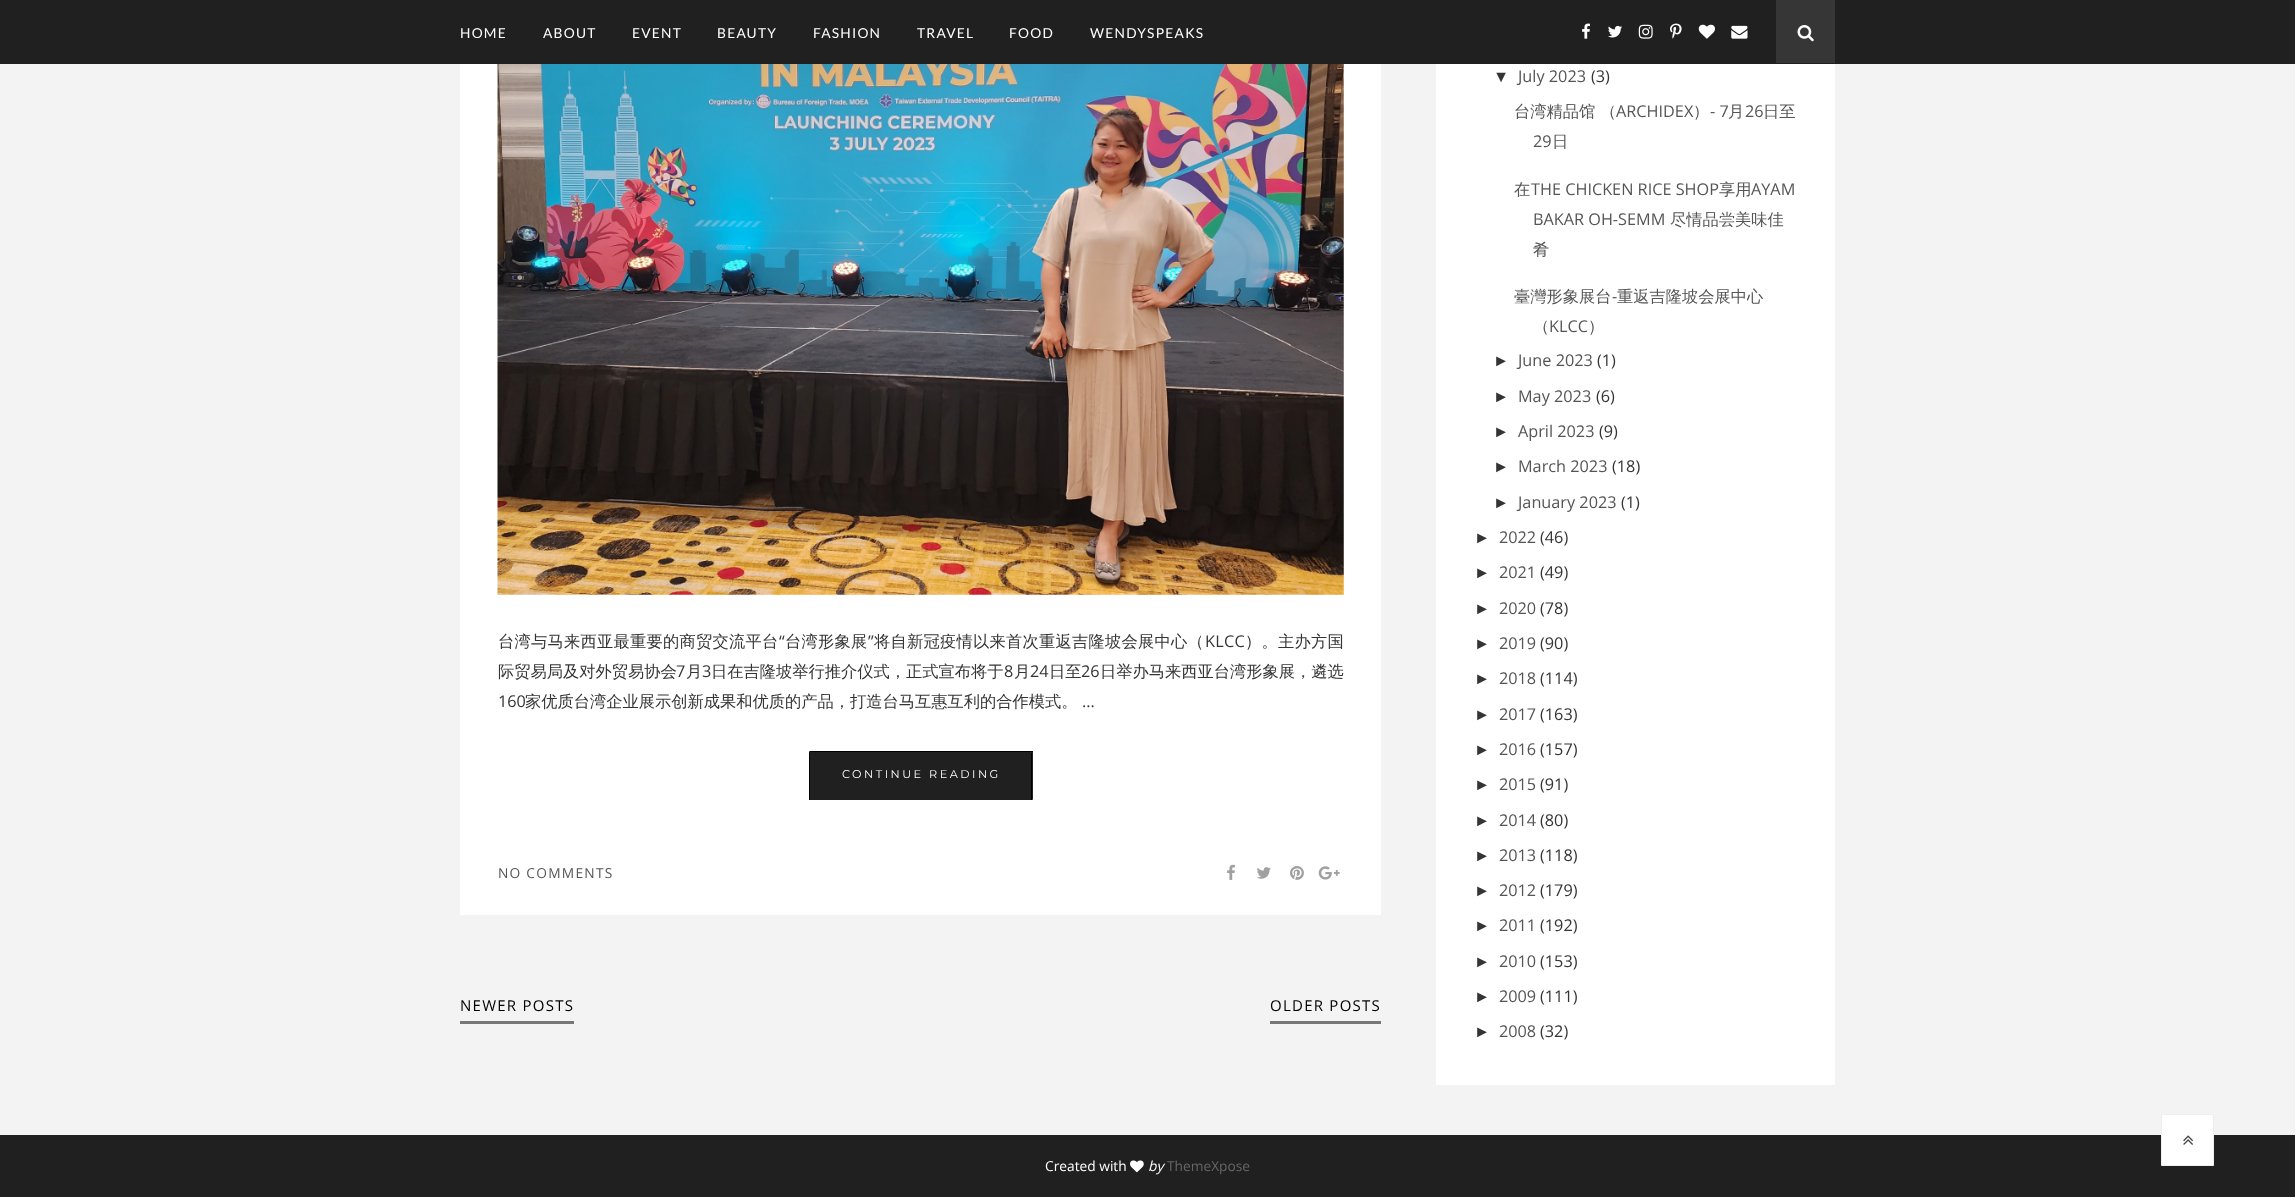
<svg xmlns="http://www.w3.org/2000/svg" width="2295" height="1197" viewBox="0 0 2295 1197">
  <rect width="100%" height="100%" fill="#f3f3f3"/>
  <rect x="460" y="-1" width="921" height="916" rx="1" fill="#fff"/>
  <rect x="1436" y="-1" width="399" height="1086" rx="1" fill="#fff"/>
  <path d="M0 0h2295v64H0z" fill="#202020"/>
  <image x="1582" y="23" width="8" height="16" href="img/1.png"/>
  <image x="1608" y="25" width="14" height="13" href="img/2.png"/>
  <image x="1638" y="24" width="15" height="15" href="img/3.png"/>
  <image x="1670" y="23" width="12" height="16" href="img/4.png"/>
  <image x="1698" y="24" width="17" height="15" href="img/5.png"/>
  <image x="1731" y="25" width="17" height="14" href="img/6.png"/>
  <path d="M1776 0h59v63H1776z" fill="#363636"/>
  <image x="1797" y="25" width="17" height="17" href="img/7.png"/>
  <image x="497" y="64" width="847" height="531" href="img/8.png"/>
  <rect x="809" y="751" width="224" height="49" rx="1" fill="#202020"/>
  <path d="M810 751h223v1H810z" fill="#000"/>
  <path d="M1031 753h1v47H1031z" fill="#000"/>
  <path d="M809 753h1v47H809z" fill="#000"/>
  <image x="1227" y="864" width="8" height="16" href="img/9.png"/>
  <image x="1257" y="867" width="14" height="12" href="img/10.png"/>
  <image x="1290" y="866" width="14" height="14" href="img/11.png"/>
  <image x="1318" y="866" width="22" height="14" href="img/12.png"/>
  <path d="M460 1021h114v3H460z" fill="#777"/>
  <path d="M1270 1021h111v3H1270z" fill="#777"/>
  <path d="M0 1135h2295v62H0z" fill="#202020"/>
  <image x="1130" y="1160" width="14" height="13" href="img/13.png"/>
  <path d="M2161.5 1114.5h52v51H2161.5z" fill="#fff" stroke="#eee"/>
  <image x="2183" y="1135" width="10" height="10" href="img/14.png"/>
  <g font-family="Lato" font-size="13.75" letter-spacing="1.25" fill="#fff">
    <text x="460" y="38">HOME</text>
    <text x="543" y="38">ABOUT</text>
    <text x="632" y="38">EVENT</text>
    <text x="717" y="38">BEAUTY</text>
    <text x="813" y="38">FASHION</text>
    <text x="917" y="38">TRAVEL</text>
    <text x="1009" y="38">FOOD</text>
    <text x="1090" y="38">WENDYSPEAKS</text>
  </g>
  <text x="498" y="647" font-family="WenQuanYi Zen Hei" font-size="16.25" font-weight="500" letter-spacing="0.25" fill="#343434">台湾与马来西亚最重要的商贸交流平台</text>
  <text x="779" y="647" font-family="Open Sans" font-size="16.25" letter-spacing="0.25" fill="#343434">“</text>
  <text x="785" y="647" font-family="WenQuanYi Zen Hei" font-size="16.25" font-weight="500" letter-spacing="0.25" fill="#343434">台湾形象展</text>
  <text x="868" y="647" font-family="Open Sans" font-size="16.25" letter-spacing="0.25" fill="#343434">”</text>
  <text x="874" y="647" font-family="WenQuanYi Zen Hei" font-size="16.25" font-weight="500" letter-spacing="0.25" fill="#343434">将自新冠疫情以来首次重返吉隆坡会展中心（</text>
  <text x="1205" y="647" font-family="Open Sans" font-size="16.25" letter-spacing="0.25" fill="#343434">KLCC</text>
  <text x="1245" y="647" font-family="WenQuanYi Zen Hei" font-size="16.25" font-weight="500" letter-spacing="0.25" fill="#343434">）。主办方国</text>
  <text x="498" y="677" font-family="WenQuanYi Zen Hei" font-size="16.25" font-weight="500" fill="#343434">际贸易局及对外贸易协会</text>
  <text x="676" y="677" font-family="Open Sans" font-size="16.25" fill="#343434">7</text>
  <text x="686" y="677" font-family="WenQuanYi Zen Hei" font-size="16.25" font-weight="500" fill="#343434">月</text>
  <text x="702" y="677" font-family="Open Sans" font-size="16.25" fill="#343434">3</text>
  <text x="711" y="677" font-family="WenQuanYi Zen Hei" font-size="16.25" font-weight="500" fill="#343434">日在吉隆坡举行推介仪式，正式宣布将于</text>
  <text x="1004" y="677" font-family="Open Sans" font-size="16.25" fill="#343434">8</text>
  <text x="1014" y="677" font-family="WenQuanYi Zen Hei" font-size="16.25" font-weight="500" fill="#343434">月</text>
  <text x="1030" y="677" font-family="Open Sans" font-size="16.25" fill="#343434">24</text>
  <text x="1049" y="677" font-family="WenQuanYi Zen Hei" font-size="16.25" font-weight="500" fill="#343434">日至</text>
  <text x="1081" y="677" font-family="Open Sans" font-size="16.25" fill="#343434">26</text>
  <text x="1100" y="677" font-family="WenQuanYi Zen Hei" font-size="16.25" font-weight="500" fill="#343434">日举办马来西亚台湾形象展，遴选</text>
  <text x="498" y="707" font-family="Open Sans" font-size="16.25" fill="#343434">160</text>
  <text x="525" y="707" font-family="WenQuanYi Zen Hei" font-size="16.25" font-weight="500" fill="#343434">家优质台湾企业展示创新成果和优质的产品，打造台马互惠互利的合作模式。</text>
  <text x="1082" y="707" font-family="Open Sans" font-size="16.25" fill="#343434">...</text>
  <text x="842" y="778" font-family="Montserrat" font-size="11.25" letter-spacing="2.5" fill="#fff">CONTINUE READING</text>
  <text x="498" y="878" font-family="Open Sans" font-size="13.75" letter-spacing="1.25" fill="#555">NO COMMENTS</text>
  <g font-family="Open Sans" font-size="15" letter-spacing="1.25" fill="#000">
    <text x="460" y="1011">NEWER POSTS</text>
    <text x="1270" y="1011">OLDER POSTS</text>
  </g>
  <text x="1493" y="82" font-family="Liberation Sans" font-size="16.25" fill="#343434">▼</text>
  <text x="1518" y="82" font-family="Open Sans" font-size="16.25" fill="#555">July 2023</text>
  <text x="1591" y="82" font-family="Open Sans" font-size="16.25" fill="#343434">(3)</text>
  <g font-family="WenQuanYi Zen Hei" font-size="16.25" font-weight="500" fill="#555">
    <text x="1514" y="117">台湾精品馆</text>
    <text x="1600" y="117">（</text>
  </g>
  <text x="1616" y="117" font-family="Open Sans" font-size="16.25" fill="#555">ARCHIDEX</text>
  <text x="1693" y="117" font-family="WenQuanYi Zen Hei" font-size="16.25" font-weight="500" fill="#555">）</text>
  <text x="1710" y="117" font-family="Open Sans" font-size="16.25" fill="#555">- 7</text>
  <text x="1728" y="117" font-family="WenQuanYi Zen Hei" font-size="16.25" font-weight="500" fill="#555">月</text>
  <text x="1745" y="117" font-family="Open Sans" font-size="16.25" fill="#555">26</text>
  <text x="1763" y="117" font-family="WenQuanYi Zen Hei" font-size="16.25" font-weight="500" fill="#555">日至</text>
  <text x="1533" y="147" font-family="Open Sans" font-size="16.25" fill="#555">29</text>
  <g font-family="WenQuanYi Zen Hei" font-size="16.25" font-weight="500" fill="#555">
    <text x="1552" y="147">日</text>
    <text x="1514" y="195">在</text>
  </g>
  <text x="1531" y="195" font-family="Open Sans" font-size="16.25" fill="#555">THE CHICKEN RICE SHOP</text>
  <text x="1719" y="195" font-family="WenQuanYi Zen Hei" font-size="16.25" font-weight="500" fill="#555">享用</text>
  <g font-family="Open Sans" font-size="16.25" fill="#555">
    <text x="1751" y="195">AYAM</text>
    <text x="1533" y="225">BAKAR OH-SEMM</text>
  </g>
  <g font-family="WenQuanYi Zen Hei" font-size="16.25" font-weight="500" fill="#555">
    <text x="1670" y="225">尽情品尝美味佳</text>
    <text x="1533" y="255">肴</text>
    <text x="1514" y="302">臺灣形象展台</text>
  </g>
  <text x="1612" y="302" font-family="Open Sans" font-size="16.25" fill="#555">-</text>
  <g font-family="WenQuanYi Zen Hei" font-size="16.25" font-weight="500" fill="#555">
    <text x="1617" y="302">重返吉隆坡会展中心</text>
    <text x="1533" y="332">（</text>
  </g>
  <text x="1549" y="332" font-family="Open Sans" font-size="16.25" fill="#555">KLCC</text>
  <text x="1588" y="332" font-family="WenQuanYi Zen Hei" font-size="16.25" font-weight="500" fill="#555">）</text>
  <text x="1493" y="366" font-family="Liberation Sans" font-size="16.25" fill="#343434">►</text>
  <text x="1518" y="366" font-family="Open Sans" font-size="16.25" fill="#555">June 2023</text>
  <text x="1597" y="366" font-family="Open Sans" font-size="16.25" fill="#343434">(1)</text>
  <text x="1493" y="402" font-family="Liberation Sans" font-size="16.25" fill="#343434">►</text>
  <text x="1518" y="402" font-family="Open Sans" font-size="16.25" fill="#555">May 2023</text>
  <text x="1596" y="402" font-family="Open Sans" font-size="16.25" fill="#343434">(6)</text>
  <text x="1493" y="437" font-family="Liberation Sans" font-size="16.25" fill="#343434">►</text>
  <text x="1518" y="437" font-family="Open Sans" font-size="16.25" fill="#555">April 2023</text>
  <text x="1599" y="437" font-family="Open Sans" font-size="16.25" fill="#343434">(9)</text>
  <text x="1493" y="472" font-family="Liberation Sans" font-size="16.25" fill="#343434">►</text>
  <text x="1518" y="472" font-family="Open Sans" font-size="16.25" fill="#555">March 2023</text>
  <text x="1612" y="472" font-family="Open Sans" font-size="16.25" fill="#343434">(18)</text>
  <text x="1493" y="508" font-family="Liberation Sans" font-size="16.25" fill="#343434">►</text>
  <text x="1518" y="508" font-family="Open Sans" font-size="16.25" fill="#555">January 2023</text>
  <text x="1621" y="508" font-family="Open Sans" font-size="16.25" fill="#343434">(1)</text>
  <text x="1474" y="543" font-family="Liberation Sans" font-size="16.25" fill="#343434">►</text>
  <text x="1499" y="543" font-family="Open Sans" font-size="16.25" fill="#555">2022</text>
  <text x="1540" y="543" font-family="Open Sans" font-size="16.25" fill="#343434">(46)</text>
  <text x="1474" y="578" font-family="Liberation Sans" font-size="16.25" fill="#343434">►</text>
  <text x="1499" y="578" font-family="Open Sans" font-size="16.25" fill="#555">2021</text>
  <text x="1540" y="578" font-family="Open Sans" font-size="16.25" fill="#343434">(49)</text>
  <text x="1474" y="614" font-family="Liberation Sans" font-size="16.25" fill="#343434">►</text>
  <text x="1499" y="614" font-family="Open Sans" font-size="16.25" fill="#555">2020</text>
  <text x="1540" y="614" font-family="Open Sans" font-size="16.25" fill="#343434">(78)</text>
  <text x="1474" y="649" font-family="Liberation Sans" font-size="16.25" fill="#343434">►</text>
  <text x="1499" y="649" font-family="Open Sans" font-size="16.25" fill="#555">2019</text>
  <text x="1540" y="649" font-family="Open Sans" font-size="16.25" fill="#343434">(90)</text>
  <text x="1474" y="684" font-family="Liberation Sans" font-size="16.25" fill="#343434">►</text>
  <text x="1499" y="684" font-family="Open Sans" font-size="16.25" fill="#555">2018</text>
  <text x="1540" y="684" font-family="Open Sans" font-size="16.25" fill="#343434">(114)</text>
  <text x="1474" y="720" font-family="Liberation Sans" font-size="16.25" fill="#343434">►</text>
  <text x="1499" y="720" font-family="Open Sans" font-size="16.25" fill="#555">2017</text>
  <text x="1540" y="720" font-family="Open Sans" font-size="16.25" fill="#343434">(163)</text>
  <text x="1474" y="755" font-family="Liberation Sans" font-size="16.25" fill="#343434">►</text>
  <text x="1499" y="755" font-family="Open Sans" font-size="16.25" fill="#555">2016</text>
  <text x="1540" y="755" font-family="Open Sans" font-size="16.25" fill="#343434">(157)</text>
  <text x="1474" y="790" font-family="Liberation Sans" font-size="16.25" fill="#343434">►</text>
  <text x="1499" y="790" font-family="Open Sans" font-size="16.25" fill="#555">2015</text>
  <text x="1540" y="790" font-family="Open Sans" font-size="16.25" fill="#343434">(91)</text>
  <text x="1474" y="826" font-family="Liberation Sans" font-size="16.25" fill="#343434">►</text>
  <text x="1499" y="826" font-family="Open Sans" font-size="16.25" fill="#555">2014</text>
  <text x="1540" y="826" font-family="Open Sans" font-size="16.25" fill="#343434">(80)</text>
  <text x="1474" y="861" font-family="Liberation Sans" font-size="16.25" fill="#343434">►</text>
  <text x="1499" y="861" font-family="Open Sans" font-size="16.25" fill="#555">2013</text>
  <text x="1540" y="861" font-family="Open Sans" font-size="16.25" fill="#343434">(118)</text>
  <text x="1474" y="896" font-family="Liberation Sans" font-size="16.25" fill="#343434">►</text>
  <text x="1499" y="896" font-family="Open Sans" font-size="16.25" fill="#555">2012</text>
  <text x="1540" y="896" font-family="Open Sans" font-size="16.25" fill="#343434">(179)</text>
  <text x="1474" y="931" font-family="Liberation Sans" font-size="16.25" fill="#343434">►</text>
  <text x="1499" y="931" font-family="Open Sans" font-size="16.25" fill="#555">2011</text>
  <text x="1540" y="931" font-family="Open Sans" font-size="16.25" fill="#343434">(192)</text>
  <text x="1474" y="967" font-family="Liberation Sans" font-size="16.25" fill="#343434">►</text>
  <text x="1499" y="967" font-family="Open Sans" font-size="16.25" fill="#555">2010</text>
  <text x="1540" y="967" font-family="Open Sans" font-size="16.25" fill="#343434">(153)</text>
  <text x="1474" y="1002" font-family="Liberation Sans" font-size="16.25" fill="#343434">►</text>
  <text x="1499" y="1002" font-family="Open Sans" font-size="16.25" fill="#555">2009</text>
  <text x="1540" y="1002" font-family="Open Sans" font-size="16.25" fill="#343434">(111)</text>
  <text x="1474" y="1037" font-family="Liberation Sans" font-size="16.25" fill="#343434">►</text>
  <text x="1499" y="1037" font-family="Open Sans" font-size="16.25" fill="#555">2008</text>
  <text x="1540" y="1037" font-family="Open Sans" font-size="16.25" fill="#343434">(32)</text>
  <text x="1045" y="1171" font-family="Open Sans" font-size="13.75" fill="#fff">Created with</text>
  <text x="1148" y="1171" font-family="Open Sans" font-size="13.75" font-style="italic" fill="#fff">by</text>
  <text x="1167" y="1171" font-family="Open Sans" font-size="13.75" fill="#666">ThemeXpose</text>
</svg>
